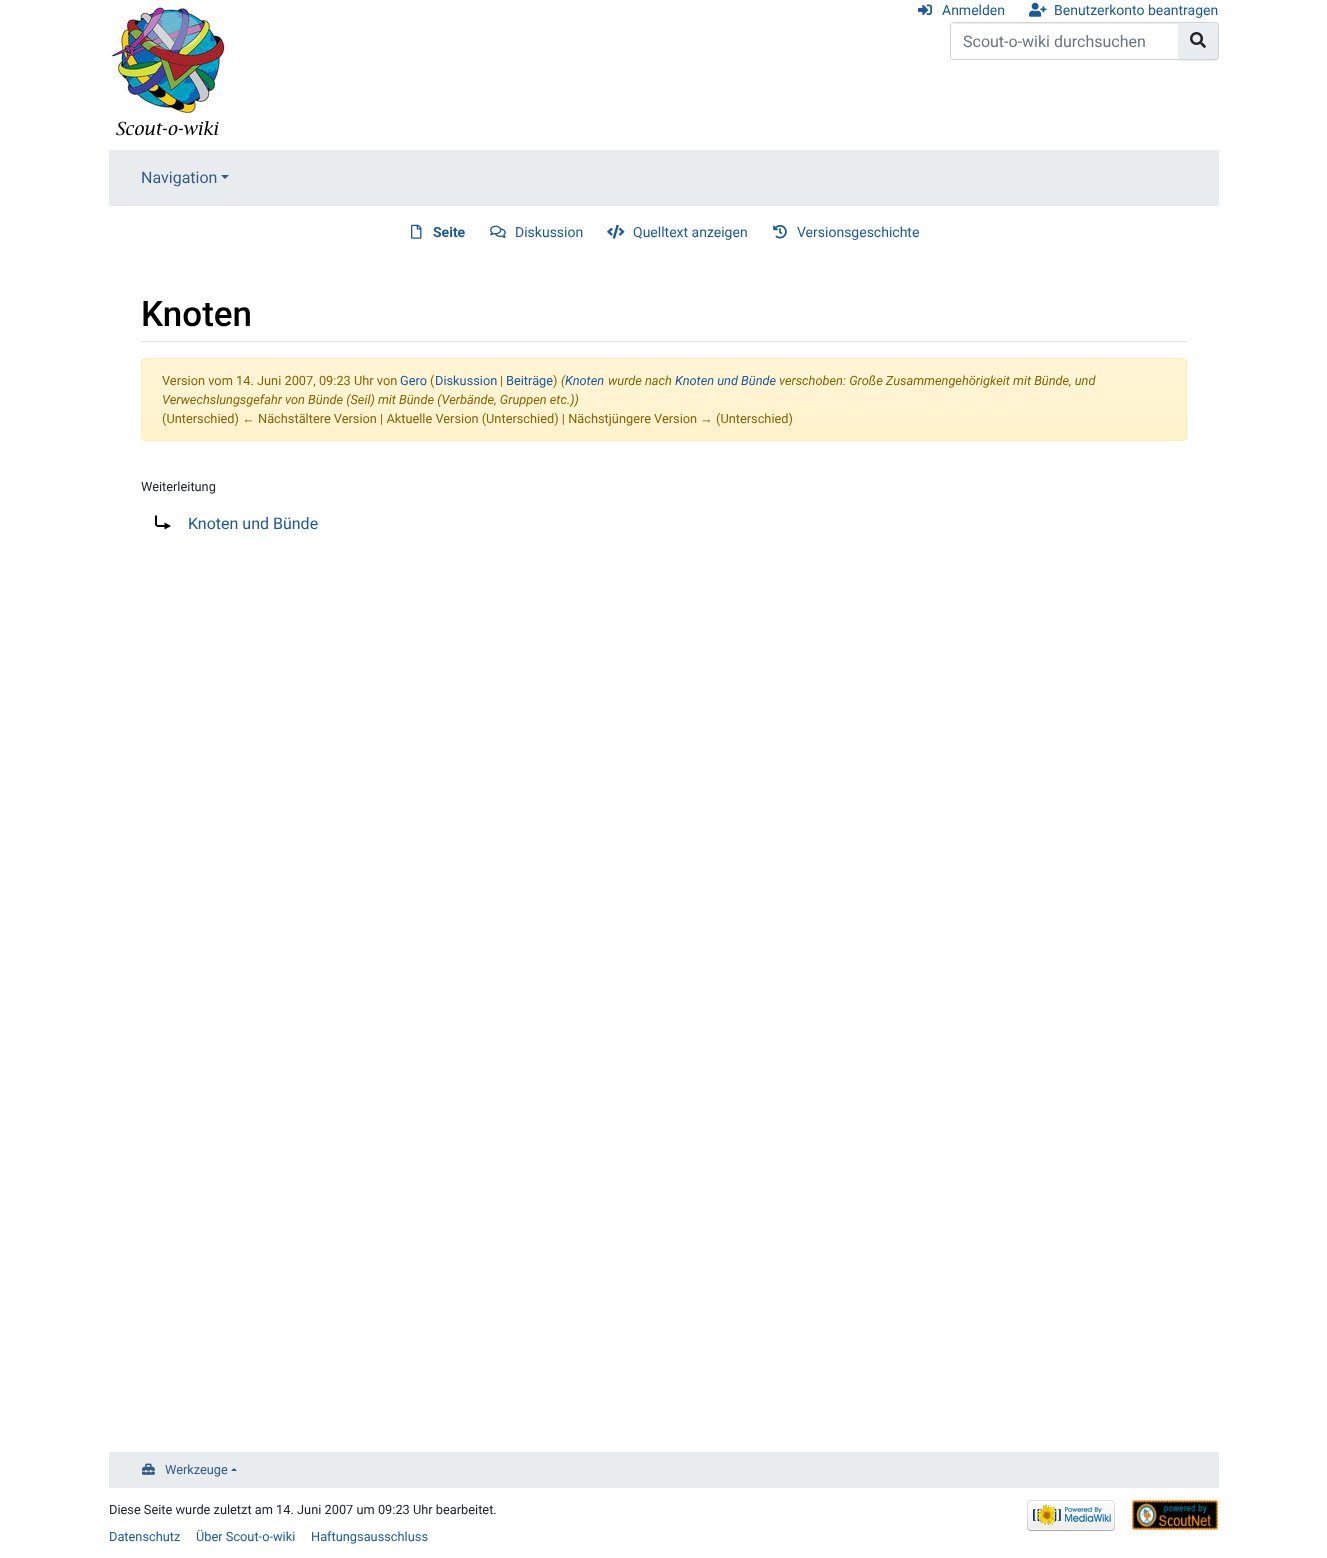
<svg xmlns="http://www.w3.org/2000/svg" width="1327" height="1558" viewBox="0 0 1327 1558">
  <defs>
    <linearGradient id="g1" gradientUnits="userSpaceOnUse" x1="1198" y1="23" x2="1198" y2="59"><stop offset="0" stop-color="#eceff1"/><stop offset="1" stop-color="#e9ecef"/></linearGradient>
    <clipPath id="clip1"><rect x="141" y="358" width="1046" height="83" rx="4"/></clipPath>
    <linearGradient id="g2" gradientUnits="userSpaceOnUse" x1="664" y1="359" x2="664" y2="440"><stop offset="0" stop-color="#fff4d5"/><stop offset="1" stop-color="#fff3cd"/></linearGradient>
  </defs>
  <rect width="100%" height="100%" fill="#fff"/>
  <image x="110" y="7" width="119" height="129" href="img/1.png"/>
  <image x="918" y="4" width="14" height="12" href="img/2.png"/>
  <image x="1029" y="2" width="18" height="15" href="img/3.png"/>
  <path d="M954 24H1178V23H954C952 23 951 25 951 27C951 25 952 24 954 24Z" fill="#ececec"/>
  <path d="M954 22.5H1178.5V59.5H954C952 59.5 950.5 58 950.5 56V26C950.5 24 952 22.5 954 22.5Z" fill="none" stroke="#ced4da"/>
  <rect x="1178" y="23" width="41" height="38" rx="4" fill="#00000012" filter="blur(0.5px)"/>
  <path d="M1178 23H1215C1216.5 23 1218 24.5 1218 26V56C1218 57.5 1216.5 59 1215 59H1178Z" fill="url(#g1)"/>
  <path d="M1178 24H1215C1217 24 1218 25 1218 27V26C1218 24 1217 23 1215 23H1178Z" fill="#ffffff26"/>
  <path d="M1178 22H1215C1217 22 1219 24 1219 26V56C1219 58 1217 60 1215 60H1178ZM1178 23H1215C1217 23 1218 24 1218 26V56C1218 58 1217 59 1215 59H1178Z" fill="#ced4da" fill-rule="evenodd"/>
  <image x="1190" y="32" width="16" height="16" href="img/4.png"/>
  <path d="M109 150h1110v56H109z" fill="#e9ecef"/>
  <path d="M221 175H229L225 179Z" fill="#355b84"/>
  <image x="411" y="224" width="11" height="15" href="img/5.png"/>
  <image x="490" y="225" width="16" height="13" href="img/6.png"/>
  <image x="607" y="224" width="18" height="15" href="img/7.png"/>
  <image x="773" y="225" width="14" height="14" href="img/8.png"/>
  <path d="M141 341h1046v1H141z" fill="#e6e6e6"/>
  <g clip-path="url(#clip1)">
    <path d="M141 359h1046v81H141z" fill="url(#g2)"/>
  </g>
  <rect x="141.5" y="358.5" width="1045" height="82" rx="3.5" fill="none" stroke="#ffeeba"/>
  <image x="155" y="515" width="16" height="15" href="img/9.png"/>
  <path d="M109 1452h1110v36H109z" fill="#e9ecef"/>
  <image x="142" y="1463" width="13" height="12" href="img/10.png"/>
  <path d="M237 1471H231L234 1468Z" fill="#355b84"/>
  <image x="1027" y="1500" width="88" height="31" href="img/11.png"/>
  <image x="1131" y="1500" width="88" height="30" href="img/12.png"/>
  <g font-family="Roboto" font-size="14" fill="#1b599b">
    <text x="942" y="15">Anmelden</text>
    <text x="1054" y="15">Benutzerkonto beantragen</text>
  </g>
  <text x="963" y="47" font-family="Roboto" font-size="16" fill="#6c757d">Scout-o-wiki durchsuchen</text>
  <text x="141" y="183" font-family="Roboto" font-size="16" fill="#355b84">Navigation</text>
  <text x="433" y="237" font-family="Roboto" font-size="14" font-weight="bold" fill="#1b599b">Seite</text>
  <g font-family="Roboto" font-size="14" fill="#1b599b">
    <text x="515" y="237">Diskussion</text>
    <text x="633" y="237">Quelltext anzeigen</text>
    <text x="797" y="237">Versionsgeschichte</text>
  </g>
  <text x="141" y="326" font-family="Roboto" font-size="35" font-weight="500" fill="#000">Knoten</text>
  <text x="162" y="385" font-family="Roboto" font-size="12.8" fill="#856404">Version vom 14. Juni 2007, 09:23 Uhr von</text>
  <text x="400" y="385" font-family="Roboto" font-size="12.8" fill="#1b599b">Gero</text>
  <text x="430" y="385" font-family="Roboto" font-size="12.8" fill="#856404">(</text>
  <text x="435" y="385" font-family="Roboto" font-size="12.8" fill="#1b599b">Diskussion</text>
  <text x="500" y="385" font-family="Roboto" font-size="12.8" fill="#856404">|</text>
  <text x="506" y="385" font-family="Roboto" font-size="12.8" fill="#1b599b">Beiträge</text>
  <text x="553" y="385" font-family="Roboto" font-size="12.8" fill="#856404">)</text>
  <text x="561" y="385" font-family="Roboto" font-size="12.8" font-style="italic" fill="#856404">(</text>
  <text x="565" y="385" font-family="Roboto" font-size="12.8" font-style="italic" fill="#1b599b">Knoten</text>
  <text x="608" y="385" font-family="Roboto" font-size="12.8" font-style="italic" fill="#856404">wurde nach</text>
  <text x="675" y="385" font-family="Roboto" font-size="12.8" font-style="italic" fill="#1b599b">Knoten und Bünde</text>
  <g font-family="Roboto" font-size="12.8" font-style="italic" fill="#856404">
    <text x="779" y="385">verschoben: Große Zusammengehörigkeit mit Bünde, und</text>
    <text x="162" y="404">Verwechslungsgefahr von Bünde (Seil) mit Bünde (Verbände, Gruppen etc.))</text>
  </g>
  <text x="162" y="423" font-family="Roboto" font-size="12.8" fill="#856404">(Unterschied)</text>
  <text x="242" y="423" font-family="Liberation Sans" font-size="12.8" fill="#856404">←</text>
  <text x="258" y="423" font-family="Roboto" font-size="12.8" fill="#856404">Nächstältere Version | Aktuelle Version (Unterschied) | Nächstjüngere Version</text>
  <text x="700" y="423" font-family="Liberation Sans" font-size="12.8" fill="#856404">→</text>
  <text x="716" y="423" font-family="Roboto" font-size="12.8" fill="#856404">(Unterschied)</text>
  <text x="141" y="491" font-family="Roboto" font-size="12.8" fill="#212529">Weiterleitung</text>
  <text x="188" y="529" font-family="Roboto" font-size="16" fill="#1b599b">Knoten und Bünde</text>
  <text x="165" y="1474" font-family="Roboto" font-size="12.8" fill="#355b84">Werkzeuge</text>
  <text x="109" y="1514" font-family="Roboto" font-size="12.8" fill="#212529">Diese Seite wurde zuletzt am 14. Juni 2007 um 09:23 Uhr bearbeitet.</text>
  <g font-family="Roboto" font-size="12.8" fill="#1b599b">
    <text x="109" y="1541">Datenschutz</text>
    <text x="196" y="1541">Über Scout-o-wiki</text>
    <text x="311" y="1541">Haftungsausschluss</text>
  </g>
</svg>
